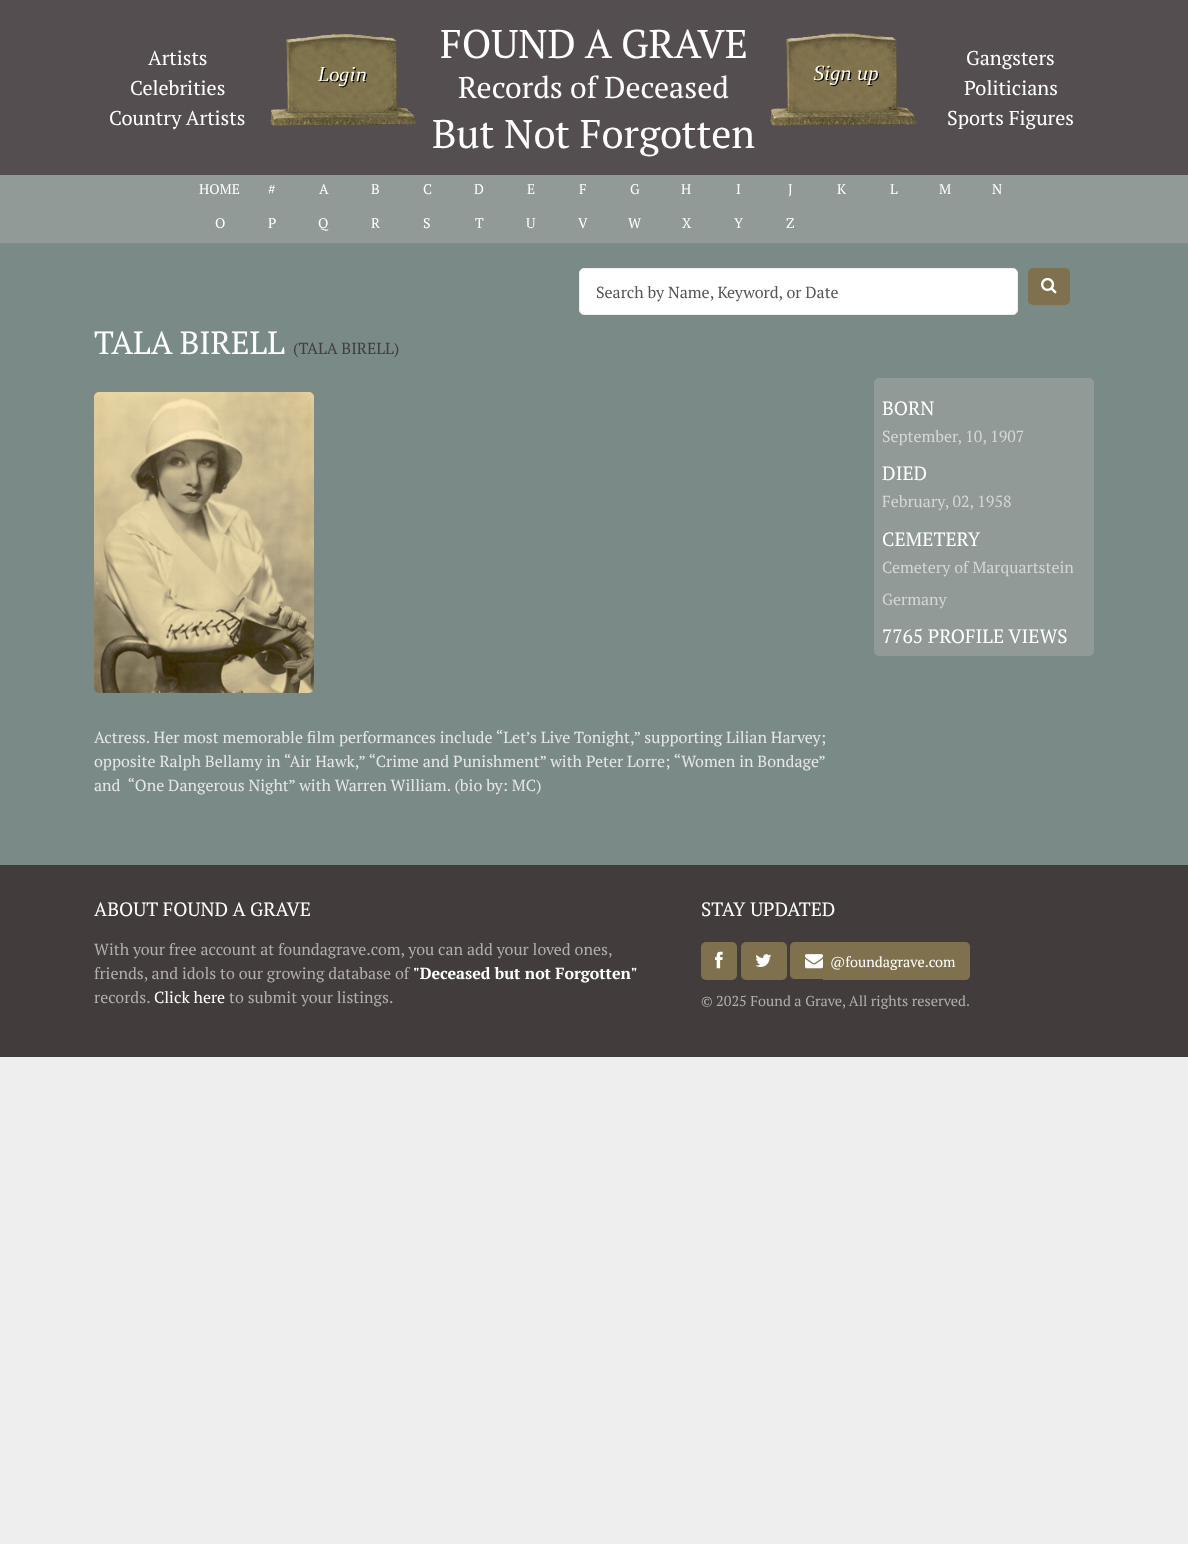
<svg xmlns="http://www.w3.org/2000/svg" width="1188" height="1544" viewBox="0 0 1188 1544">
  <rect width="100%" height="100%" fill="#eee"/>
  <path d="M0 0h1188v175H0z" fill="#544e50"/>
  <image x="270" y="33" width="146" height="93" href="img/1.png"/>
  <image x="770" y="33" width="147" height="93" href="img/2.png"/>
  <path d="M0 175h1188v68H0z" fill="#919a97"/>
  <path d="M0 243h1188v622H0z" fill="#7a8b87"/>
  <rect x="579.5" y="268.5" width="438" height="46" rx="4.5" fill="#fff" stroke="#eee"/>
  <rect x="1028" y="268" width="42" height="37" rx="5" fill="#7f714d"/>
  <image x="1041" y="277" width="16" height="17" href="img/3.png"/>
  <image x="94" y="392" width="220" height="301" href="img/4.png"/>
  <rect x="874" y="378" width="220" height="278" rx="5" fill="#919a97"/>
  <path d="M0 865h1188v192H0z" fill="#423c3d"/>
  <rect x="701" y="942" width="36" height="38" rx="5" fill="#7f714d"/>
  <image x="715" y="951" width="8" height="18" href="img/5.png"/>
  <rect x="741" y="942" width="46" height="38" rx="5" fill="#7f714d"/>
  <image x="755" y="954" width="17" height="13" href="img/6.png"/>
  <path d="M795 942H823V979H795C792 979 790 977 790 974V947C790 944 792 942 795 942Z" fill="#7f714d"/>
  <path d="M823 942H965C968 942 970 944 970 947V975C970 978 968 980 965 980H823Z" fill="#7f714d"/>
  <image x="805" y="954" width="18" height="15" href="img/7.png"/>
  <g font-family="PT Serif" font-size="20" fill="#fff">
    <text x="148" y="65">Artists</text>
    <text x="130" y="95">Celebrities</text>
    <text x="109" y="125">Country Artists</text>
  </g>
  <text x="440" y="58" font-family="PT Serif" font-size="40" fill="#fff">FOUND A GRAVE</text>
  <text x="458" y="98" font-family="PT Serif" font-size="30" fill="#fff">Records of Deceased</text>
  <text x="432" y="148" font-family="PT Serif" font-size="40" fill="#fff">But Not Forgotten</text>
  <g font-family="PT Serif" font-size="20" fill="#fff">
    <text x="966" y="65">Gangsters</text>
    <text x="964" y="95">Politicians</text>
    <text x="947" y="125">Sports Figures</text>
  </g>
  <g font-family="PT Serif" font-size="14" fill="#fff">
    <text x="199" y="194">HOME</text>
    <text x="268" y="194">#</text>
    <text x="319" y="194">A</text>
    <text x="371" y="194">B</text>
    <text x="423" y="194">C</text>
    <text x="474" y="194">D</text>
    <text x="527" y="194">E</text>
    <text x="579" y="194">F</text>
    <text x="630" y="194">G</text>
    <text x="681" y="194">H</text>
    <text x="736" y="194">I</text>
    <text x="788" y="194">J</text>
    <text x="837" y="194">K</text>
    <text x="890" y="194">L</text>
    <text x="939" y="194">M</text>
    <text x="992" y="194">N</text>
    <text x="215" y="228">O</text>
    <text x="268" y="228">P</text>
    <text x="318" y="228">Q</text>
    <text x="371" y="228">R</text>
    <text x="423" y="228">S</text>
    <text x="475" y="228">T</text>
    <text x="526" y="228">U</text>
    <text x="578" y="228">V</text>
    <text x="628" y="228">W</text>
    <text x="682" y="228">X</text>
    <text x="734" y="228">Y</text>
    <text x="786" y="228">Z</text>
  </g>
  <text x="596" y="298" font-family="PT Serif" font-size="16" fill="#555">Search by Name, Keyword, or Date</text>
  <text x="94" y="354" font-family="PT Serif" font-size="32" fill="#fff">TALA BIRELL</text>
  <text x="293" y="354" font-family="PT Serif" font-size="16" fill="#423c3d">(TALA BIRELL)</text>
  <g font-family="PT Serif" font-size="16" fill="#e6e6e6">
    <text x="94" y="743">Actress. Her most memorable film performances include “Let’s Live Tonight,” supporting Lilian Harvey;</text>
    <text x="94" y="767">opposite Ralph Bellamy in “Air Hawk,” “Crime and Punishment” with Peter Lorre; “Women in Bondage”</text>
    <text x="94" y="791" xml:space="preserve">and  “One Dangerous Night” with Warren William. (bio by: MC)</text>
  </g>
  <text x="882" y="415" font-family="PT Serif" font-size="19.25" fill="#fff">BORN</text>
  <text x="882" y="442" font-family="PT Serif" font-size="16" fill="#d3d7d5">September, 10, 1907</text>
  <text x="882" y="480" font-family="PT Serif" font-size="19.25" fill="#fff">DIED</text>
  <text x="882" y="507" font-family="PT Serif" font-size="16" fill="#d3d7d5">February, 02, 1958</text>
  <text x="882" y="546" font-family="PT Serif" font-size="19.25" fill="#fff">CEMETERY</text>
  <g font-family="PT Serif" font-size="16" fill="#d3d7d5">
    <text x="882" y="573">Cemetery of Marquartstein</text>
    <text x="882" y="605">Germany</text>
  </g>
  <g font-family="PT Serif" font-size="19.25" fill="#fff">
    <text x="882" y="643">7765 PROFILE VIEWS</text>
    <text x="94" y="916">ABOUT FOUND A GRAVE</text>
  </g>
  <g font-family="PT Serif" font-size="16" fill="#b0aeae">
    <text x="94" y="955">With your free account at foundagrave.com, you can add your loved ones,</text>
    <text x="94" y="979">friends, and idols to our growing database of</text>
  </g>
  <text x="413" y="979" font-family="PT Serif" font-size="16" font-weight="bold" fill="#fff">"Deceased but not Forgotten"</text>
  <text x="94" y="1003" font-family="PT Serif" font-size="16" fill="#b0aeae">records.</text>
  <text x="154" y="1003" font-family="PT Serif" font-size="16" fill="#fff">Click here</text>
  <text x="229" y="1003" font-family="PT Serif" font-size="16" fill="#b0aeae">to submit your listings.</text>
  <text x="701" y="916" font-family="PT Serif" font-size="19.25" fill="#fff">STAY UPDATED</text>
  <text x="830" y="967" font-family="PT Serif" font-size="14.4" fill="#fff">@foundagrave.com</text>
  <text x="701" y="1006" font-family="PT Serif" font-size="14.4" fill="#b0aeae">© 2025 Found a Grave, All rights reserved.</text>
</svg>
